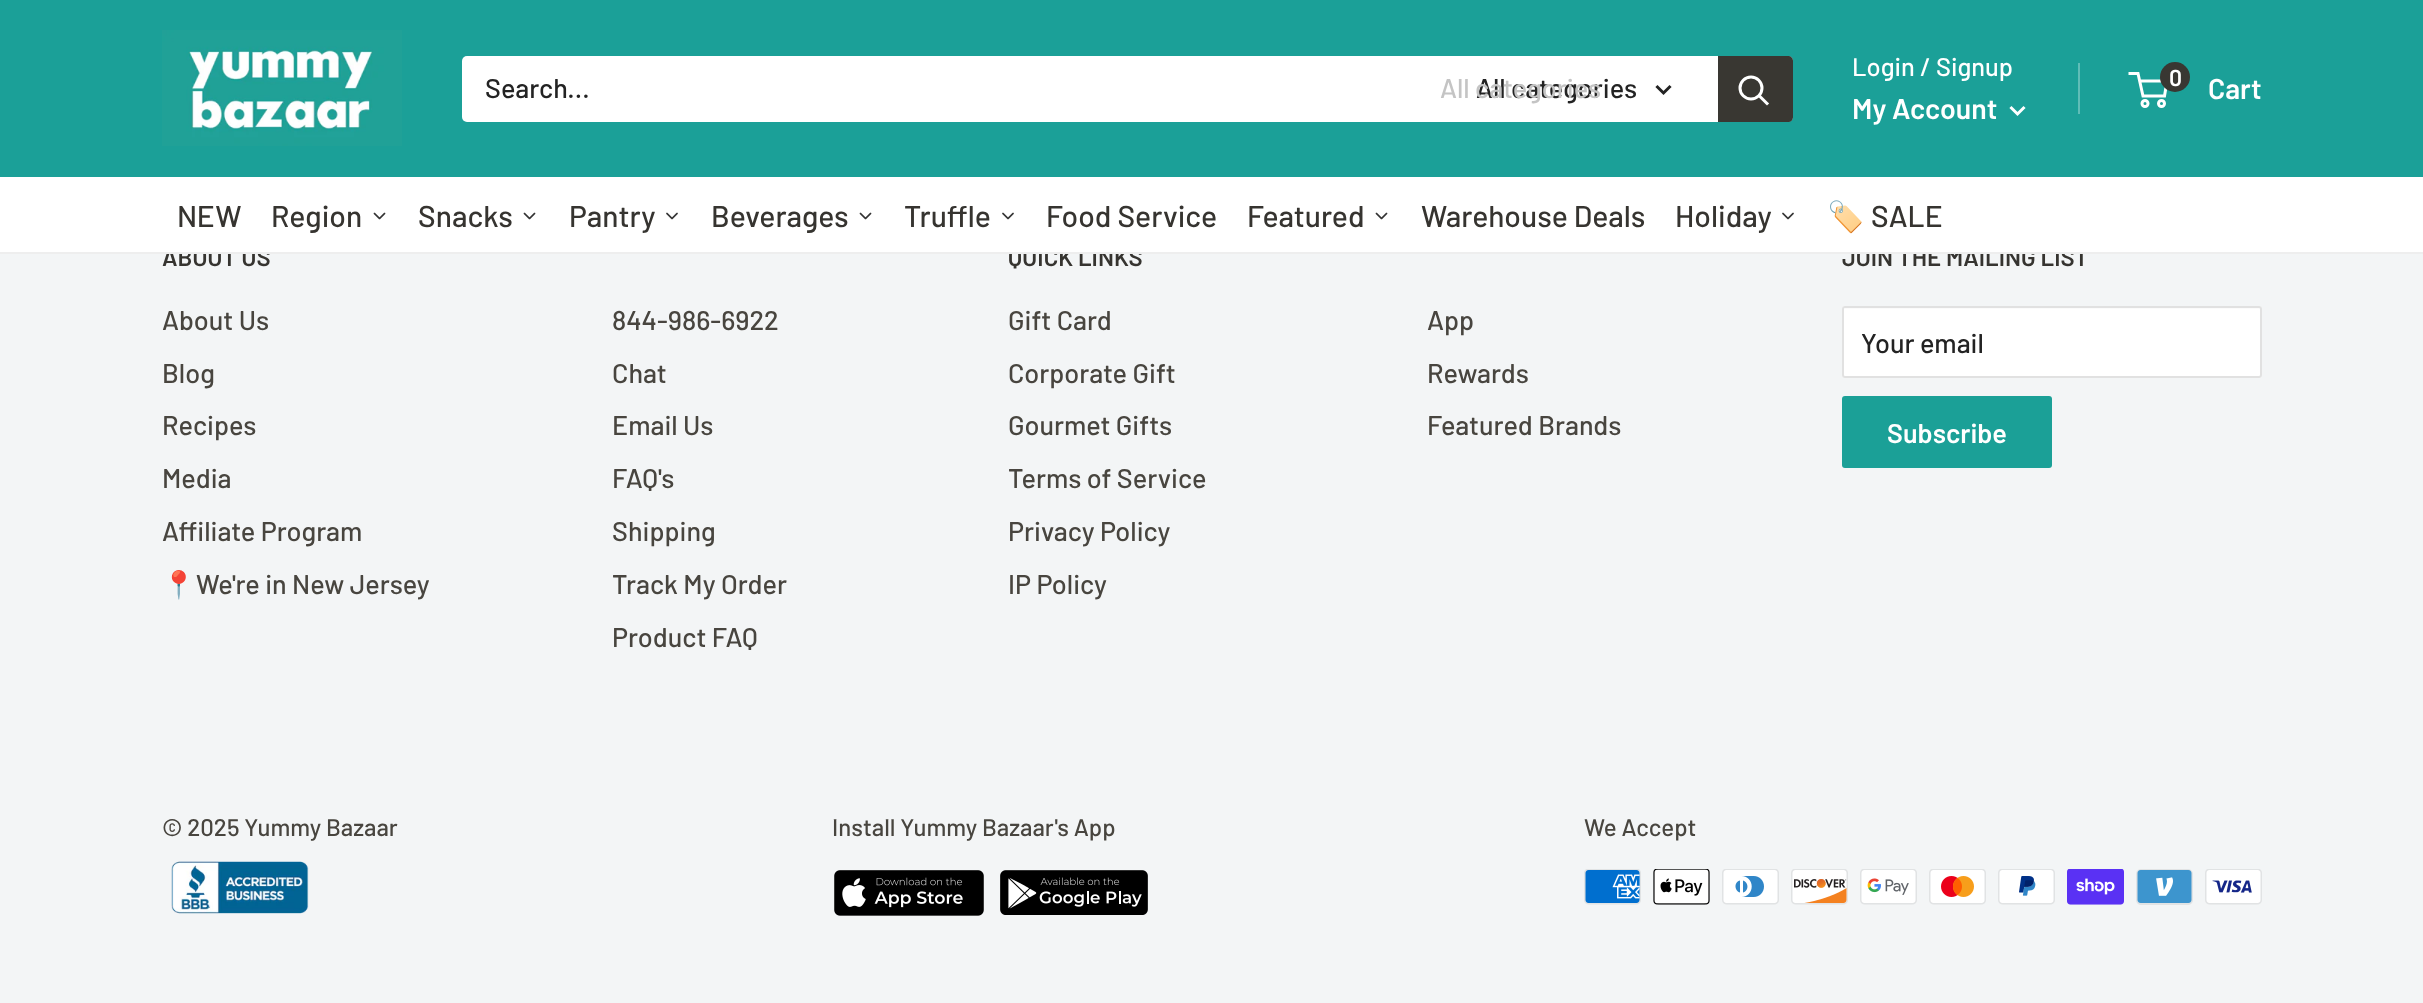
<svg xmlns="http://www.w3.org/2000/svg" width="2423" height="1003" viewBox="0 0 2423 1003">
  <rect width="100%" height="100%" fill="#f3f5f6"/>
  <path d="M0 0h2423v177H0z" fill="#1ba098"/>
  <image x="162" y="30" width="240" height="116" href="img/1.png"/>
  <rect x="462" y="56" width="1331" height="66" rx="5" fill="#fff"/>
  <path d="M1669.5 87L1663.5 93L1657.5 87" fill="none" stroke="#232323" stroke-width="3" stroke-linecap="square"/>
  <path d="M1718 56H1788C1791 56 1793 58 1793 61V117C1793 120 1791 122 1788 122H1718Z" fill="#393732"/>
  <path d="M1767 103.5L1759.5 96" fill="none" stroke="#fff" stroke-width="3" stroke-linecap="square"/>
  <circle cx="1751" cy="88" r="11" fill="none" stroke="#fff" stroke-width="3"/>
  <path d="M2078 63h2v51H2078z" fill="#5fbdb7"/>
  <path d="M2023.5 108L2017.5 114L2011.5 108" fill="none" stroke="#fff" stroke-width="3" stroke-linecap="square"/>
  <circle cx="2145" cy="103.5" r="3" fill="none" stroke="#fff" stroke-width="3"/>
  <circle cx="2161.5" cy="103.5" r="3" fill="none" stroke="#fff" stroke-width="3"/>
  <path d="M2139.5 81H2167L2164.5 96H2143L2138 73.5H2128.5" fill="none" stroke="#fff" stroke-width="3"/>
  <circle cx="2175" cy="77" r="15" fill="#393732"/>
  <rect x="1842" y="306" width="420" height="72" rx="3" fill="#fff"/>
  <path d="M1845 309H2259C2260 309 2260 310 2260 310V377C2261 377 2261 376 2261 376V310C2261 309 2260 308 2260 308H1846C1845 308 1844 309 1844 310Z" fill="#fbfbfb"/>
  <rect x="1843" y="307" width="418" height="70" rx="2" fill="none" stroke="#e1e1e1" stroke-width="2"/>
  <rect x="1842" y="396" width="210" height="72" rx="3" fill="#1ba097"/>
  <image x="171" y="861" width="138" height="53" href="img/4.png"/>
  <image x="834" y="870" width="150" height="46" href="img/5.png"/>
  <image x="1000" y="870" width="148" height="45" href="img/6.png"/>
  <image x="1584" y="869" width="57" height="36" href="img/7.png"/>
  <image x="1653" y="869" width="57" height="36" href="img/8.png"/>
  <image x="1722" y="869" width="57" height="36" href="img/9.png"/>
  <image x="1791" y="869" width="57" height="36" href="img/10.png"/>
  <image x="1860" y="869" width="57" height="36" href="img/11.png"/>
  <image x="1929" y="869" width="57" height="36" href="img/12.png"/>
  <image x="1998" y="869" width="57" height="36" href="img/13.png"/>
  <image x="2067" y="869" width="57" height="36" href="img/14.png"/>
  <image x="2136" y="869" width="57" height="36" href="img/15.png"/>
  <image x="2205" y="869" width="57" height="36" href="img/16.png"/>
  <g font-family="Barlow" font-size="27" font-weight="500" fill="#232323">
    <text x="485" y="98">Search...</text>
    <text x="1476" y="98">All categories</text>
  </g>
  <text x="1440" y="98" font-family="Barlow" font-size="27" font-weight="500" fill="#c4c4c4">All categories</text>
  <text x="1852" y="76" font-family="Barlow" font-size="25.5" font-weight="500" fill="#fff">Login / Signup</text>
  <text x="1852" y="119" font-family="Barlow" font-size="28.5" font-weight="600" fill="#fff">My Account</text>
  <text x="2169" y="86" font-family="Barlow" font-size="23" font-weight="600" fill="#fff">0</text>
  <text x="2208" y="99" font-family="Barlow" font-size="28.5" font-weight="600" fill="#fff">Cart</text>
  <text x="162" y="266" font-family="Barlow" font-size="24" font-weight="600" fill="#363430">ABOUT US</text>
  <g font-family="Barlow" font-size="27" font-weight="500" fill="#48453f">
    <text x="162" y="330">About Us</text>
    <text x="162" y="383">Blog</text>
    <text x="162" y="435">Recipes</text>
    <text x="162" y="488">Media</text>
    <text x="162" y="541">Affiliate Program</text>
  </g>
  <text x="162" y="594" font-family="Noto Color Emoji" font-size="27" fill="#48453f">📍</text>
  <g font-family="Barlow" font-size="27" font-weight="500" fill="#48453f">
    <text x="196" y="594">We're in New Jersey</text>
    <text x="612" y="330">844-986-6922</text>
    <text x="612" y="383">Chat</text>
    <text x="612" y="435">Email Us</text>
    <text x="612" y="488">FAQ's</text>
    <text x="612" y="541">Shipping</text>
    <text x="612" y="594">Track My Order</text>
    <text x="612" y="647">Product FAQ</text>
  </g>
  <text x="1008" y="266" font-family="Barlow" font-size="24" font-weight="600" fill="#363430">QUICK LINKS</text>
  <g font-family="Barlow" font-size="27" font-weight="500" fill="#48453f">
    <text x="1008" y="330">Gift Card</text>
    <text x="1008" y="383">Corporate Gift</text>
    <text x="1008" y="435">Gourmet Gifts</text>
    <text x="1008" y="488">Terms of Service</text>
    <text x="1008" y="541">Privacy Policy</text>
    <text x="1008" y="594">IP Policy</text>
    <text x="1427" y="330">App</text>
    <text x="1427" y="383">Rewards</text>
    <text x="1427" y="435">Featured Brands</text>
  </g>
  <text x="1842" y="266" font-family="Barlow" font-size="24" font-weight="600" fill="#363430">JOIN THE MAILING LIST</text>
  <path d="M0 177h2423v75H0z" fill="#fff"/>
  <text x="1871" y="227" font-family="Barlow" font-size="30" font-weight="500" fill="#363430">SALE</text>
  <text x="1827" y="227" font-family="Noto Color Emoji" font-size="30" fill="#363430">🏷️</text>
  <image x="1782" y="212" width="12" height="8" href="img/3.png"/>
  <g font-family="Barlow" font-size="30" font-weight="500" fill="#363430">
    <text x="1675" y="227">Holiday</text>
    <text x="1421" y="227">Warehouse Deals</text>
  </g>
  <image x="1375" y="212" width="13" height="8" href="img/2.png"/>
  <g font-family="Barlow" font-size="30" font-weight="500" fill="#363430">
    <text x="1247" y="227">Featured</text>
    <text x="1046" y="227">Food Service</text>
  </g>
  <image x="1002" y="212" width="12" height="8" href="img/3.png"/>
  <text x="904" y="227" font-family="Barlow" font-size="30" font-weight="500" fill="#363430">Truffle</text>
  <image x="859" y="212" width="13" height="8" href="img/2.png"/>
  <text x="711" y="227" font-family="Barlow" font-size="30" font-weight="500" fill="#363430">Beverages</text>
  <image x="666" y="212" width="12" height="8" href="img/3.png"/>
  <text x="569" y="227" font-family="Barlow" font-size="30" font-weight="500" fill="#363430">Pantry</text>
  <image x="523" y="212" width="13" height="8" href="img/2.png"/>
  <text x="418" y="227" font-family="Barlow" font-size="30" font-weight="500" fill="#363430">Snacks</text>
  <image x="373" y="212" width="13" height="8" href="img/2.png"/>
  <g font-family="Barlow" font-size="30" font-weight="500" fill="#363430">
    <text x="271" y="227">Region</text>
    <text x="177" y="227">NEW</text>
  </g>
  <path d="M0 252h2423v2H0z" fill="#eee"/>
  <text x="1861" y="353" font-family="Barlow" font-size="27" font-weight="500" fill="#232323">Your email</text>
  <text x="1887" y="443" font-family="Barlow" font-size="27" font-weight="600" fill="#fff">Subscribe</text>
  <g font-family="Barlow" font-size="24" font-weight="500" fill="#48453f">
    <text x="162" y="836">© 2025 Yummy Bazaar</text>
    <text x="832" y="836">Install Yummy Bazaar's App</text>
    <text x="1584" y="836">We Accept</text>
  </g>
</svg>
